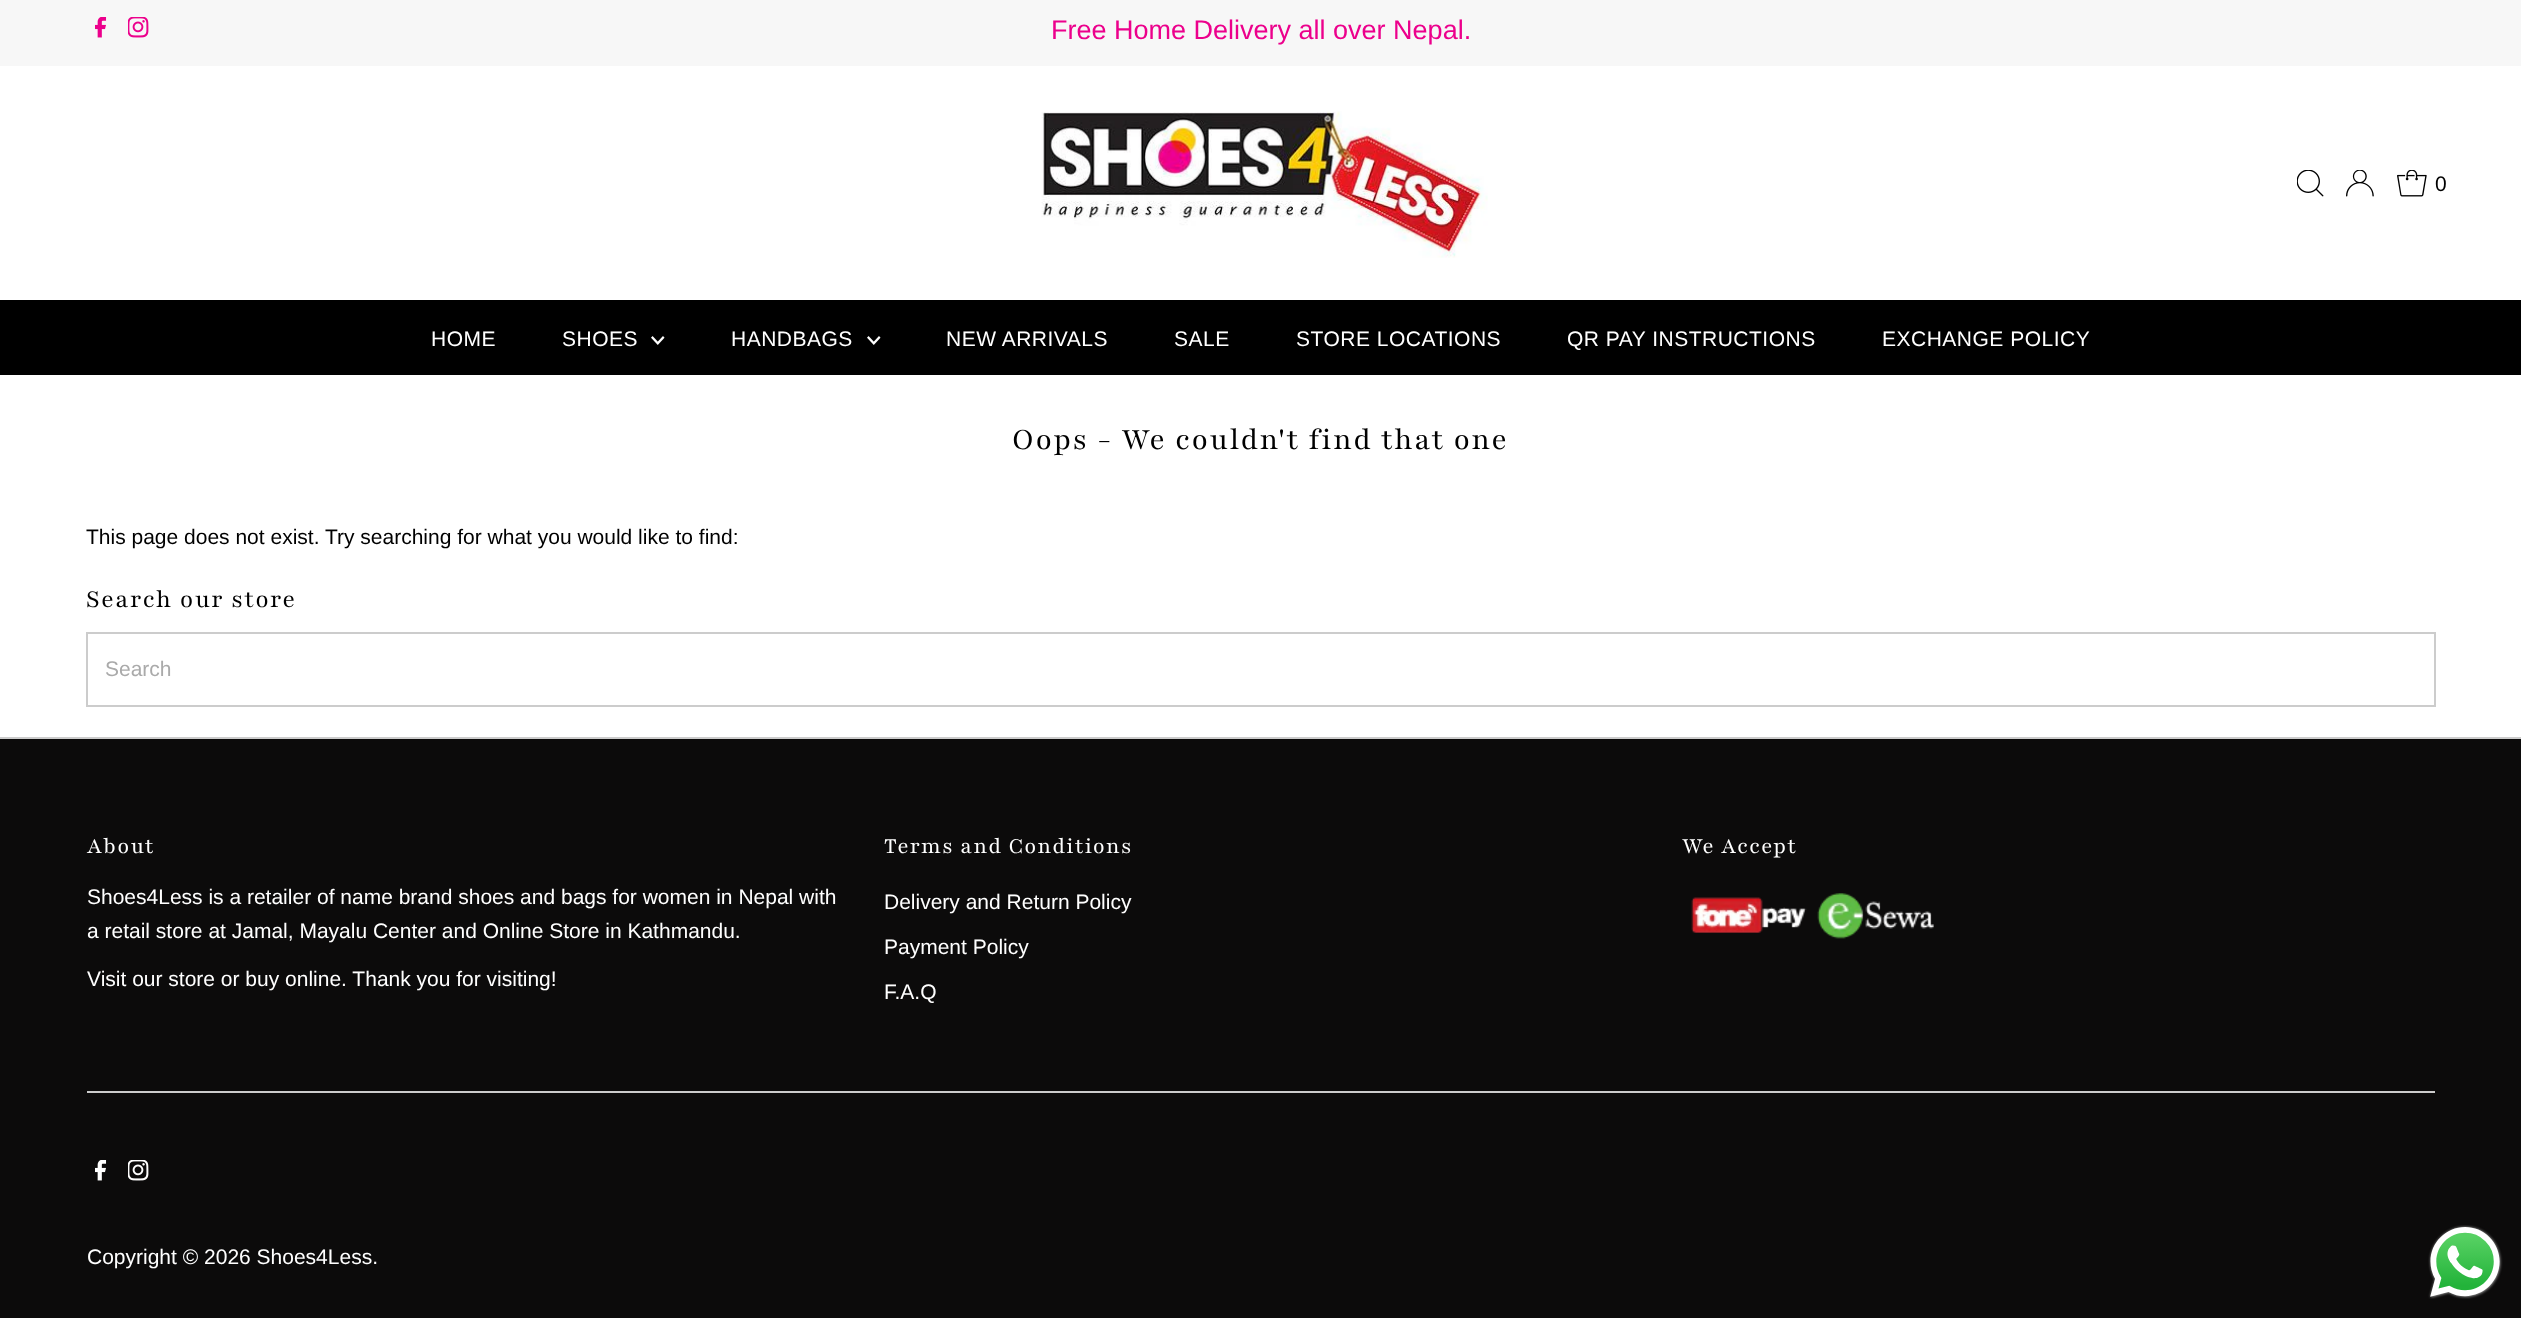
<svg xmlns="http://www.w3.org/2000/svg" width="2521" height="1318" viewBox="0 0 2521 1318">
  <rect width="100%" height="100%" fill="#fff"/>
  <path d="M0 0h2521v66H0z" fill="#f7f7f7"/>
  <image x="95" y="17" width="12" height="21" href="img/1.png"/>
  <image x="128" y="17" width="21" height="21" href="img/2.png"/>
  <image x="1041" y="111" width="447" height="147" href="img/3.png"/>
  <image x="2297" y="170" width="27" height="27" href="img/4.png"/>
  <image x="2346" y="170" width="28" height="27" href="img/5.png"/>
  <image x="2397" y="170" width="30" height="27" href="img/6.png"/>
  <path d="M0 300h2521v75H0z" fill="#000"/>
  <image x="651" y="336" width="14" height="9" href="img/7.png"/>
  <image x="867" y="336" width="14" height="9" href="img/7.png"/>
  <path d="M87 633h2348v73H87z" fill="none" stroke="#ccc" stroke-width="2"/>
  <path d="M0 739h2521v579H0z" fill="#0c0b0b"/>
  <path d="M0 737h2521v2H0z" fill="#ccc"/>
  <image x="1691" y="893" width="243" height="46" href="img/8.png"/>
  <path d="M87 1091h2348v2H87z" fill="#ccc"/>
  <image x="95" y="1160" width="12" height="21" href="img/9.png"/>
  <image x="128" y="1160" width="21" height="21" href="img/10.png"/>
  <image x="2428" y="1225" width="75" height="74" href="img/11.png"/>
  <text x="1051" y="39" font-family="Arimo" font-size="27" fill="#ec008c">Free Home Delivery all over Nepal.</text>
  <text x="2435" y="191" font-family="Arimo" font-size="21" fill="#000">0</text>
  <g font-family="Arimo" font-size="21" letter-spacing="0.5" fill="#fff">
    <text x="431" y="346">HOME</text>
    <text x="562" y="346">SHOES</text>
    <text x="731" y="346">HANDBAGS</text>
    <text x="946" y="346">NEW ARRIVALS</text>
    <text x="1174" y="346">SALE</text>
    <text x="1296" y="346">STORE LOCATIONS</text>
    <text x="1567" y="346">QR PAY INSTRUCTIONS</text>
    <text x="1882" y="346">EXCHANGE POLICY</text>
  </g>
  <text x="1012" y="449" font-family="'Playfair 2'" font-size="33" letter-spacing="1.65" fill="#000">Oops - We couldn't find that one</text>
  <text x="86" y="544" font-family="Arimo" font-size="21" fill="#000">This page does not exist. Try searching for what you would like to find:</text>
  <text x="86" y="607" font-family="'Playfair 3'" font-size="27" letter-spacing="1.4" fill="#000">Search our store</text>
  <text x="105" y="676" font-family="Arimo" font-size="21" fill="#aaa">Search</text>
  <text x="87" y="853" font-family="Playfair" font-size="24" letter-spacing="1.2" fill="#fff">About</text>
  <g font-family="Arimo" font-size="21" fill="#fff">
    <text x="87" y="904">Shoes4Less is a retailer of name brand shoes and bags for women in Nepal with</text>
    <text x="87" y="938">a retail store at Jamal, Mayalu Center and Online Store in Kathmandu.</text>
    <text x="87" y="986">Visit our store or buy online. Thank you for visiting!</text>
  </g>
  <text x="884" y="853" font-family="Playfair" font-size="24" letter-spacing="1.2" fill="#fff">Terms and Conditions</text>
  <g font-family="Arimo" font-size="21" fill="#fff">
    <text x="884" y="909">Delivery and Return Policy</text>
    <text x="884" y="954">Payment Policy</text>
    <text x="884" y="999">F.A.Q</text>
  </g>
  <text x="1682" y="853" font-family="Playfair" font-size="24" letter-spacing="1.2" fill="#fff">We Accept</text>
  <text x="87" y="1264" font-family="Arimo" font-size="21" fill="#fff">Copyright © 2026 Shoes4Less.</text>
</svg>
